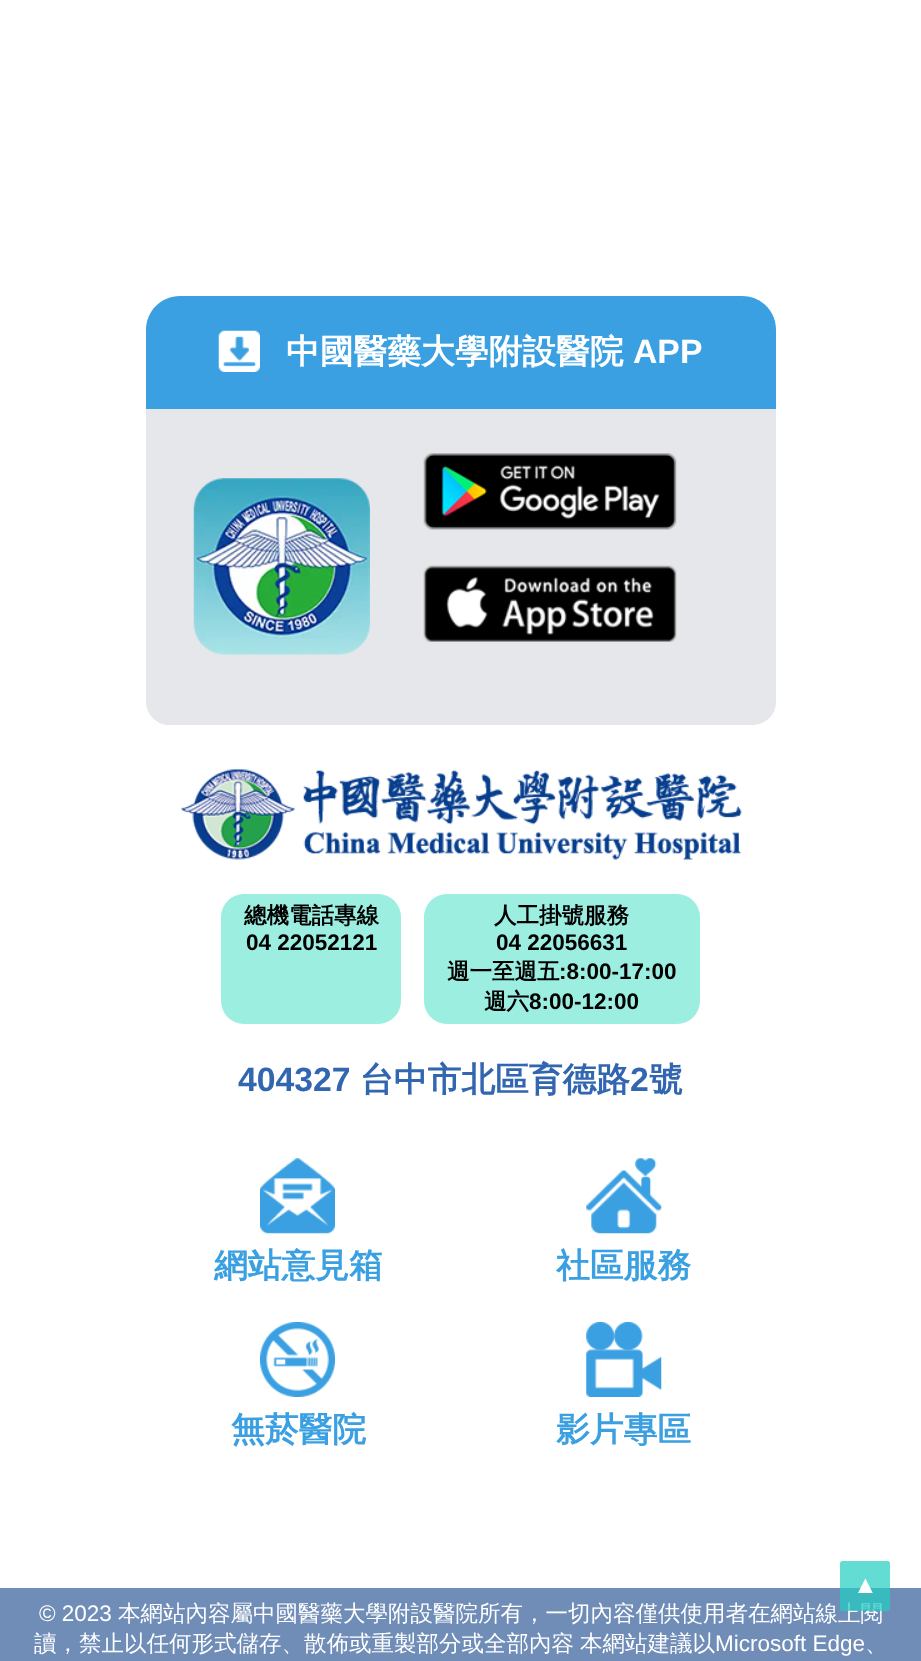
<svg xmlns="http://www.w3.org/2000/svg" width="921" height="1661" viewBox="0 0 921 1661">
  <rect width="100%" height="100%" fill="#fff"/>
  <path d="M180 296H742C761 296 776 311 776 330V409H146V330C146 311 161 296 180 296Z" fill="#3aa0e1"/>
  <image x="218" y="330" width="42" height="42" href="img/1.png"/>
  <path d="M146 409H776V702C776 714.5 765.5 725 753 725H169C156.5 725 146 714.5 146 702Z" fill="#e6e7ea"/>
  <image x="193" y="478" width="177" height="177" href="img/2.png"/>
  <image x="423" y="453" width="254" height="77" href="img/3.png"/>
  <image x="423" y="565" width="254" height="77" href="img/4.png"/>
  <image x="181" y="769" width="561" height="91" href="img/5.png"/>
  <rect x="221" y="894" width="180" height="130" rx="23" fill="#9ceee1"/>
  <rect x="424" y="894" width="276" height="130" rx="23" fill="#9ceee1"/>
  <image x="260" y="1158" width="75" height="76" href="img/6.png"/>
  <image x="586" y="1158" width="76" height="76" href="img/7.png"/>
  <image x="260" y="1322" width="75" height="75" href="img/8.png"/>
  <image x="586" y="1322" width="76" height="75" href="img/9.png"/>
  <path d="M0 1588h921v73H0z" fill="#6f8db7"/>
  <text x="286" y="363" font-family="WenQuanYi Zen Hei" font-size="33.75" font-weight="bold" fill="#fff">中國醫藥大學附設醫院</text>
  <text x="633" y="363" font-family="Liberation Sans" font-size="33.75" font-weight="bold" fill="#fff">APP</text>
  <text x="244" y="923" font-family="WenQuanYi Zen Hei" font-size="22.5" font-weight="bold" fill="#000">總機電話專線</text>
  <text x="246" y="950" font-family="Liberation Sans" font-size="22.5" font-weight="bold" fill="#000">04 22052121</text>
  <text x="494" y="923" font-family="WenQuanYi Zen Hei" font-size="22.5" font-weight="bold" fill="#000">人工掛號服務</text>
  <text x="496" y="950" font-family="Liberation Sans" font-size="22.5" font-weight="bold" fill="#000">04 22056631</text>
  <text x="447" y="979" font-family="WenQuanYi Zen Hei" font-size="22.5" font-weight="bold" fill="#000">週一至週五</text>
  <text x="559" y="979" font-family="Liberation Sans" font-size="22.5" font-weight="bold" fill="#000">:8:00-17:00</text>
  <text x="484" y="1009" font-family="WenQuanYi Zen Hei" font-size="22.5" font-weight="bold" fill="#000">週六</text>
  <text x="529" y="1009" font-family="Liberation Sans" font-size="22.5" font-weight="bold" fill="#000">8:00-12:00</text>
  <text x="238" y="1091" font-family="Liberation Sans" font-size="33.75" font-weight="bold" fill="#3266b0">404327</text>
  <text x="360" y="1091" font-family="WenQuanYi Zen Hei" font-size="33.75" font-weight="bold" fill="#3266b0">台中市北區育德路</text>
  <text x="630" y="1091" font-family="Liberation Sans" font-size="33.75" font-weight="bold" fill="#3266b0">2</text>
  <text x="649" y="1091" font-family="WenQuanYi Zen Hei" font-size="33.75" font-weight="bold" fill="#3266b0">號</text>
  <g font-family="WenQuanYi Zen Hei" font-size="33.75" font-weight="bold" fill="#3aa0e1">
    <text x="214" y="1277">網站意見箱</text>
    <text x="556" y="1277">社區服務</text>
    <text x="231" y="1441">無菸醫院</text>
    <text x="556" y="1441">影片專區</text>
  </g>
  <text x="39" y="1621" font-family="Liberation Sans" font-size="22.5" fill="#fff">© 2023</text>
  <g font-family="WenQuanYi Zen Hei" font-size="22.5" font-weight="500" fill="#fff">
    <text x="118" y="1621">本網站內容屬中國醫藥大學附設醫院所有，一切內容僅供使用者在網站線上閱</text>
    <text x="34" y="1651">讀，禁止以任何形式儲存、散佈或重製部分或全部內容</text>
    <text x="580" y="1651">本網站建議以</text>
  </g>
  <text x="715" y="1651" font-family="Liberation Sans" font-size="22.5" fill="#fff">Microsoft Edge</text>
  <text x="865" y="1651" font-family="WenQuanYi Zen Hei" font-size="22.5" font-weight="500" fill="#fff">、</text>
  <rect x="840" y="1561" width="50" height="50" rx="2.5" fill="#21cdc1b3"/>
  <text x="853" y="1593" font-family="Liberation Sans" font-size="25" fill="#fff">▲</text>
</svg>
